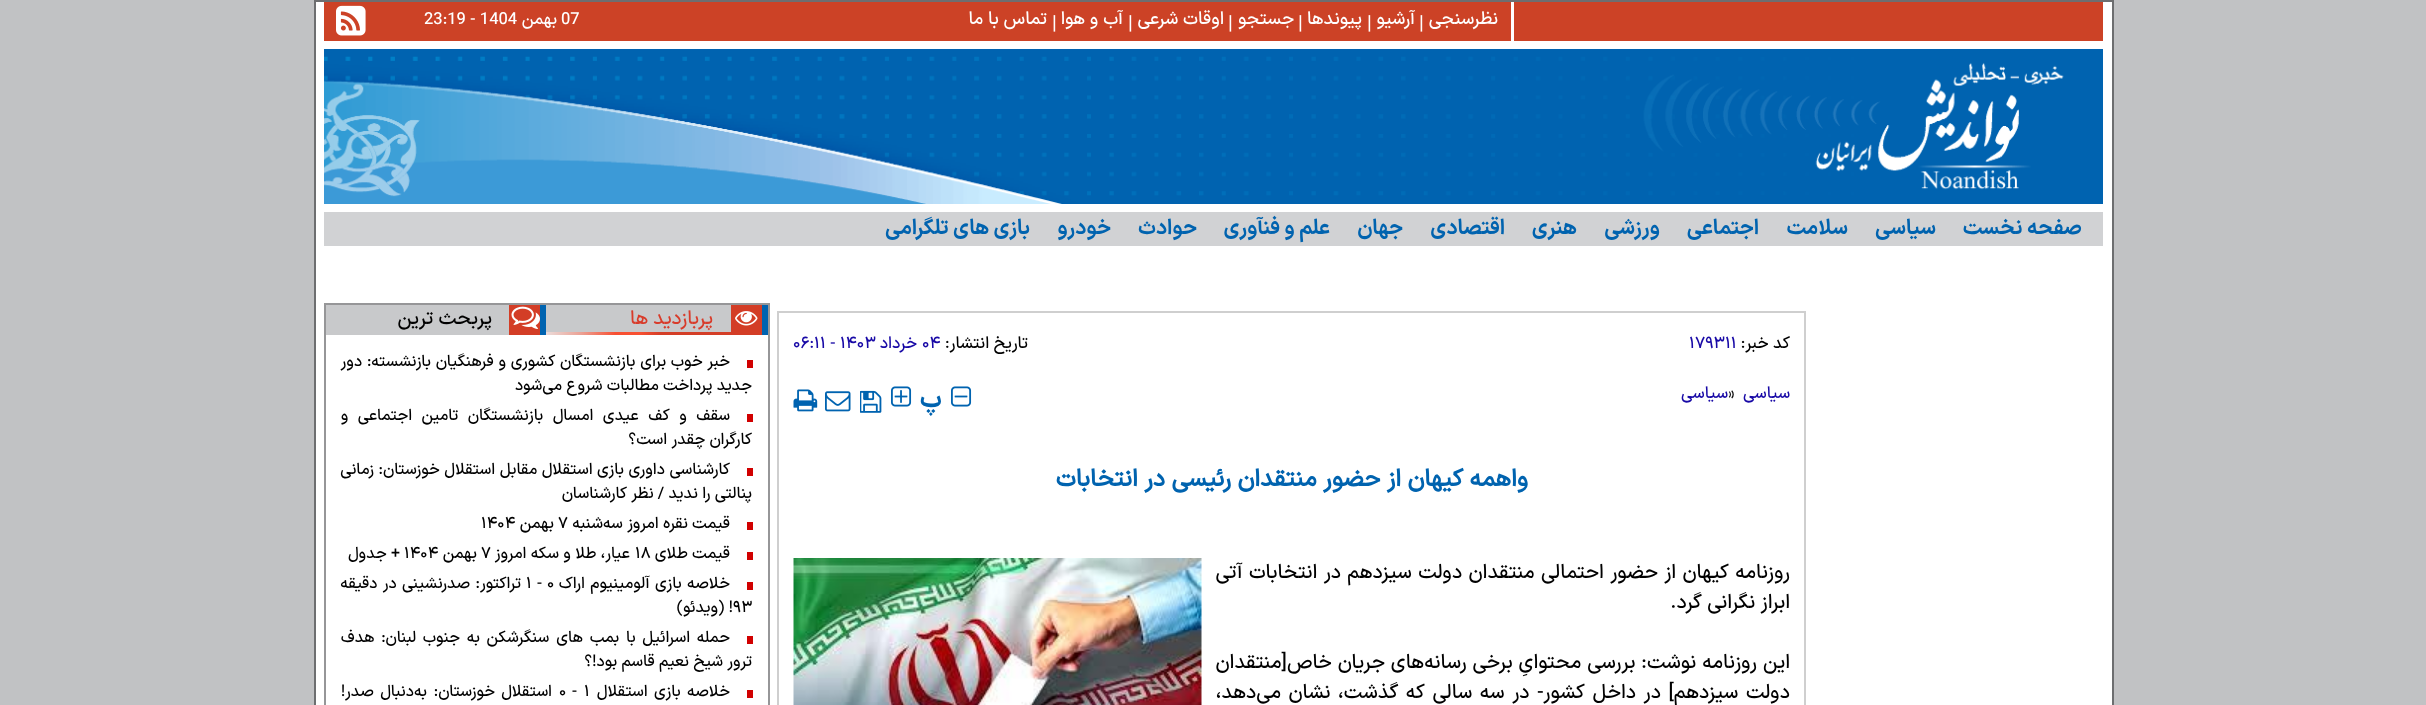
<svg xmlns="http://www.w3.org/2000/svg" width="2426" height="705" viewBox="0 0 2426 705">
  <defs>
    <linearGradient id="g1" gradientUnits="userSpaceOnUse" x1="540" y1="333" x2="756" y2="333"><stop offset="0" stop-color="#8a6e6a"/><stop offset="0" stop-color="#ebe6e6"/><stop offset="0.19" stop-color="#eba194"/><stop offset="0.35" stop-color="#f84f32"/><stop offset="0.37" stop-color="#f85032"/><stop offset="0.46" stop-color="#f85032"/><stop offset="0.56" stop-color="#d43e27"/><stop offset="1" stop-color="#d43e27"/></linearGradient>
  </defs>
  <rect width="100%" height="100%" fill="#c1c2c4"/>
  <path d="M315 1h1798v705H315z" fill="#fff" stroke="#6d6e70" stroke-width="2"/>
  <path d="M324 2h1779v39H324z" fill="#cc4226"/>
  <path d="M1511 2h3v39H1511z" fill="#fff"/>
  <image x="336" y="5" width="30" height="31" href="img/1.png"/>
  <image x="324" y="49" width="1779" height="155" href="img/2.png"/>
  <path d="M324 212h1779v34H324z" fill="#d1d2d4"/>
  <path d="M778 312h1027v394H778z" fill="none" stroke="#cfcfcf" stroke-width="2"/>
  <image x="951" y="386" width="21" height="21" href="img/3.png"/>
  <image x="891" y="386" width="21" height="21" href="img/4.png"/>
  <image x="860" y="390" width="22" height="23" href="img/5.png"/>
  <image x="825" y="391" width="26" height="21" href="img/6.png"/>
  <image x="793" y="389" width="25" height="23" href="img/7.png"/>
  <image x="793" y="558" width="409" height="147" href="img/8.png"/>
  <path d="M325 304h444v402H325z" fill="none" stroke="#969698" stroke-width="2"/>
  <path d="M546 305h185v27H546z" fill="#c8c9cb"/>
  <path d="M762 305h6v30H762z" fill="#0063b0"/>
  <path d="M731 305h31v30H731z" fill="#d33d26"/>
  <path d="M546 332h185v3H546z" fill="url(#g1)"/>
  <image x="735" y="311" width="23" height="15" href="img/9.png"/>
  <path d="M326 305h183v30H326z" fill="#c8c9cb"/>
  <path d="M540 305h6v30H540z" fill="#0063b0"/>
  <path d="M509 305h31v30H509z" fill="#d33d26"/>
  <image x="511" y="306" width="29" height="23" href="img/10.png"/>
  <path d="M747 360h6v8H747z" fill="#d10000"/>
  <path d="M747 414h6v8H747z" fill="#d10000"/>
  <path d="M747 468h6v8H747z" fill="#d10000"/>
  <path d="M747 522h6v8H747z" fill="#d10000"/>
  <path d="M747 552h6v8H747z" fill="#d10000"/>
  <path d="M747 582h6v8H747z" fill="#d10000"/>
  <path d="M747 636h6v8H747z" fill="#d10000"/>
  <path d="M747 690h6v8H747z" fill="#d10000"/>
  <text x="1498" y="24" font-family="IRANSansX" font-size="18" font-weight="500" direction="rtl" fill="#fff">نظرسنجی</text>
  <text x="1419" y="29" font-family="IRANSansX" font-size="19.5" font-weight="500" fill="#fff">|</text>
  <text x="1415" y="24" font-family="IRANSansX" font-size="18" font-weight="500" direction="rtl" fill="#fff">آرشیو</text>
  <text x="1367" y="29" font-family="IRANSansX" font-size="19.5" font-weight="500" fill="#fff">|</text>
  <text x="1362" y="24" font-family="IRANSansX" font-size="18" font-weight="500" direction="rtl" fill="#fff">پیوندها</text>
  <text x="1298" y="29" font-family="IRANSansX" font-size="19.5" font-weight="500" fill="#fff">|</text>
  <text x="1294" y="24" font-family="IRANSansX" font-size="18" font-weight="500" direction="rtl" fill="#fff">جستجو</text>
  <text x="1228" y="29" font-family="IRANSansX" font-size="19.5" font-weight="500" fill="#fff">|</text>
  <text x="1224" y="24" font-family="IRANSansX" font-size="18" font-weight="500" direction="rtl" fill="#fff">اوقات شرعی</text>
  <text x="1128" y="29" font-family="IRANSansX" font-size="19.5" font-weight="500" fill="#fff">|</text>
  <text x="1123" y="24" font-family="IRANSansX" font-size="18" font-weight="500" direction="rtl" fill="#fff">آب و هوا</text>
  <text x="1052" y="29" font-family="IRANSansX" font-size="19.5" font-weight="500" fill="#fff">|</text>
  <text x="1047" y="24" font-family="IRANSansX" font-size="18" font-weight="500" direction="rtl" fill="#fff">تماس با ما</text>
  <text x="561" y="24" font-family="IRANSansX" font-size="16.5" font-weight="500" fill="#fff">07</text>
  <text x="557" y="24" font-family="IRANSansX" font-size="16.5" font-weight="500" direction="rtl" fill="#fff">بهمن</text>
  <text x="424" y="24" font-family="IRANSansX" font-size="16.5" font-weight="500" fill="#fff">23:19 - 1404</text>
  <g font-family="IRANSansX" font-size="21" font-weight="bold" direction="rtl" fill="#0063af">
    <text x="2082" y="234">صفحه نخست</text>
    <text x="1936" y="234">سیاسی</text>
    <text x="1848" y="234">سلامت</text>
    <text x="1759" y="234">اجتماعی</text>
    <text x="1660" y="234">ورزشی</text>
    <text x="1577" y="234">هنری</text>
    <text x="1505" y="234">اقتصادى</text>
    <text x="1403" y="234">جهان</text>
    <text x="1330" y="234">علم و فنآوری</text>
    <text x="1197" y="234">حوادث</text>
    <text x="1111" y="234">خودرو</text>
    <text x="1030" y="234">بازی های تلگرامی</text>
  </g>
  <text x="1790" y="348" font-family="IRANSansX" font-size="16.5" font-weight="500" direction="rtl" fill="#000">کد خبر:</text>
  <text x="1689" y="348" font-family="IRANSansX" font-size="16.5" font-weight="500" fill="#1809a6">۱۷۹۳۱۱</text>
  <text x="1028" y="348" font-family="IRANSansX" font-size="16.5" font-weight="500" direction="rtl" fill="#000">تاریخ انتشار:</text>
  <text x="922" y="348" font-family="IRANSansX" font-size="16.5" font-weight="500" fill="#1809a6">۰۴</text>
  <text x="917" y="348" font-family="IRANSansX" font-size="16.5" font-weight="500" direction="rtl" fill="#1809a6">خرداد</text>
  <text x="793" y="348" font-family="IRANSansX" font-size="16.5" font-weight="500" fill="#1809a6">۰۶:۱۱ - ۱۴۰۳</text>
  <text x="1790" y="398" font-family="IRANSansX" font-size="16.5" font-weight="500" direction="rtl" fill="#1809a6">سیاسی</text>
  <text x="1728" y="398" font-family="IRANSansX" font-size="16.5" font-weight="500" fill="#000">»</text>
  <text x="1728" y="398" font-family="IRANSansX" font-size="16.5" font-weight="500" direction="rtl" fill="#1809a6">سیاسی</text>
  <text x="942" y="407" font-family="IRANSansX" font-size="26" font-weight="bold" direction="rtl" fill="#0063af">پ</text>
  <text x="1528" y="486" font-family="'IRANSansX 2'" font-size="24" font-weight="bold" direction="rtl" fill="#0063af">واهمه کیهان از حضور منتقدان رئیسی در انتخابات</text>
  <g font-family="IRANSansX" font-size="20" font-weight="500" direction="rtl" fill="#000">
    <text x="1790" y="578" word-spacing="1">روزنامه کیهان از حضور احتمالی منتقدان دولت سیزدهم در انتخابات آتی</text>
    <text x="1790" y="608">ابراز نگرانی گرد.</text>
    <text x="1790" y="668" word-spacing="0.5">این روزنامه نوشت: بررسی محتوایِ برخی رسانه‌های جریان خاص[منتقدان</text>
    <text x="1790" y="698" word-spacing="2.25">دولت سیزدهم] در داخل کشور- در سه سالی که گذشت، نشان می‌دهد،</text>
  </g>
  <text x="713" y="324" font-family="IRANSansX" font-size="19.5" font-weight="500" direction="rtl" fill="#d83b2a">پربازدید ها</text>
  <text x="492" y="324" font-family="IRANSansX" font-size="19.5" font-weight="500" direction="rtl" fill="#000">پربحث ترین</text>
  <g font-family="IRANSansX" font-size="16" font-weight="500" direction="rtl" fill="#000">
    <text x="730" y="366" word-spacing="0.5">خبر خوب برای بازنشستگان کشوری و فرهنگیان بازنشسته: دور</text>
    <text x="752" y="390">جدید پرداخت مطالبات شروع می‌شود</text>
    <text x="730" y="420" word-spacing="5.25">سقف و کف عیدی امسال بازنشستگان تامین اجتماعی و</text>
    <text x="752" y="444">کارگران چقدر است؟</text>
    <text x="730" y="474" word-spacing="0.25">کارشناسی داوری بازی استقلال مقابل استقلال خوزستان: زمانی</text>
    <text x="752" y="498">پنالتی را ندید / نظر کارشناسان</text>
    <text x="730" y="528">قیمت نقره امروز سه‌شنبه</text>
  </g>
  <text x="558" y="528" font-family="IRANSansX" font-size="16" font-weight="500" fill="#000">۷</text>
  <text x="554" y="528" font-family="IRANSansX" font-size="16" font-weight="500" direction="rtl" fill="#000">بهمن</text>
  <text x="481" y="528" font-family="IRANSansX" font-size="16" font-weight="500" fill="#000">۱۴۰۴</text>
  <text x="730" y="558" font-family="IRANSansX" font-size="16" font-weight="500" direction="rtl" fill="#000">قیمت طلای</text>
  <text x="635" y="558" font-family="IRANSansX" font-size="16" font-weight="500" fill="#000">۱۸</text>
  <text x="630" y="558" font-family="IRANSansX" font-size="16" font-weight="500" direction="rtl" fill="#000">عیار، طلا و سکه امروز</text>
  <text x="481" y="558" font-family="IRANSansX" font-size="16" font-weight="500" fill="#000">۷</text>
  <text x="477" y="558" font-family="IRANSansX" font-size="16" font-weight="500" direction="rtl" fill="#000">بهمن</text>
  <text x="404" y="558" font-family="IRANSansX" font-size="16" font-weight="500" fill="#000">۱۴۰۴</text>
  <g font-family="IRANSansX" font-size="16" font-weight="500" direction="rtl" fill="#000">
    <text x="400" y="558">+ جدول</text>
    <text x="730" y="588" word-spacing="1">خلاصه بازی آلومینیوم اراک</text>
  </g>
  <g font-family="IRANSansX" font-size="16" font-weight="500" fill="#000">
    <text x="547" y="588">۰</text>
    <text x="537" y="588">-</text>
    <text x="526" y="588">۱</text>
  </g>
  <text x="521" y="588" word-spacing="1" font-family="IRANSansX" font-size="16" font-weight="500" direction="rtl" fill="#000">تراکتور: صدرنشینی در دقیقه</text>
  <text x="733" y="612" font-family="IRANSansX" font-size="16" font-weight="500" fill="#000">۹۳</text>
  <g font-family="IRANSansX" font-size="16" font-weight="500" direction="rtl" fill="#000">
    <text x="733" y="612">! (ویدئو)</text>
    <text x="730" y="642" word-spacing="2.5">حمله اسرائیل با بمب های سنگرشکن به جنوب لبنان: هدف</text>
    <text x="752" y="666">ترور شیخ نعیم قاسم بود!؟</text>
    <text x="730" y="696" word-spacing="2">خلاصه بازی استقلال</text>
  </g>
  <g font-family="IRANSansX" font-size="16" font-weight="500" fill="#000">
    <text x="584" y="696">۱</text>
    <text x="572" y="696">-</text>
    <text x="559" y="696">۰</text>
  </g>
  <g font-family="IRANSansX" font-size="16" font-weight="500" direction="rtl" fill="#000">
    <text x="552" y="696" word-spacing="2">استقلال خوزستان:</text>
    <text x="427" y="696" word-spacing="2">به‌دنبال صدر!</text>
  </g>
</svg>
